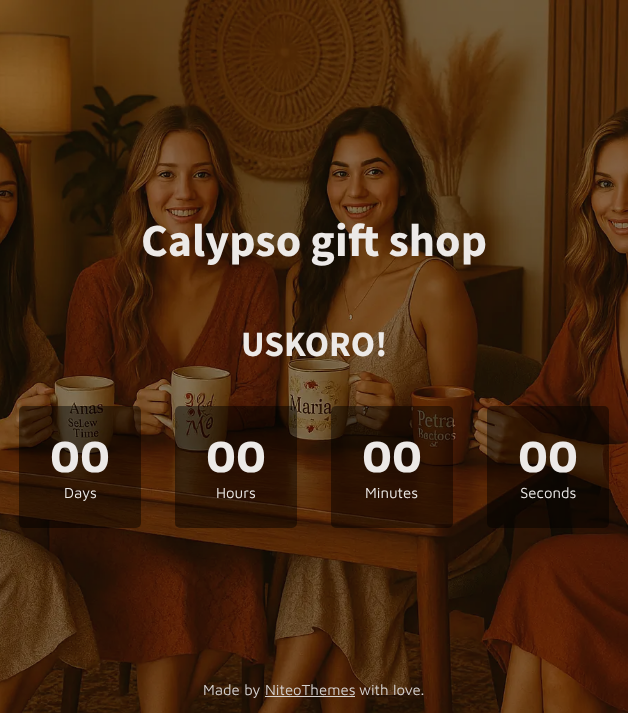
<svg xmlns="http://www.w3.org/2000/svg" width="628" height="713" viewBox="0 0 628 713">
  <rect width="100%" height="100%" fill="#fff"/>
  <image x="0" y="0" width="628" height="713" href="img/1.png"/>
  <rect x="19" y="406" width="122" height="122" rx="5" fill="#00000073"/>
  <rect x="175" y="406" width="122" height="122" rx="5" fill="#00000073"/>
  <rect x="331" y="406" width="122" height="122" rx="5" fill="#00000073"/>
  <rect x="487" y="406" width="122" height="122" rx="5" fill="#00000073"/>
  <path d="M265 696h90v1H265z" fill="#e6e6e6e6"/>
  <text x="141" y="256" font-family="Source Sans Pro" font-size="46" font-weight="bold" fill="#ece9e7">Calypso gift shop</text>
  <text x="241" y="356" font-family="Source Sans Pro" font-size="35.5" font-weight="bold" fill="#ece9e7">USKORO!</text>
  <text x="50" y="472" font-family="Maven Pro" font-size="45" font-weight="bold" fill="#ece9e7">00</text>
  <text x="64" y="498" font-family="Maven Pro" font-size="15" fill="#ece9e7">Days</text>
  <text x="206" y="472" font-family="Maven Pro" font-size="45" font-weight="bold" fill="#ece9e7">00</text>
  <text x="216" y="498" font-family="Maven Pro" font-size="15" fill="#ece9e7">Hours</text>
  <text x="362" y="472" font-family="Maven Pro" font-size="45" font-weight="bold" fill="#ece9e7">00</text>
  <text x="365" y="498" font-family="Maven Pro" font-size="15" fill="#ece9e7">Minutes</text>
  <text x="518" y="472" font-family="Maven Pro" font-size="45" font-weight="bold" fill="#ece9e7">00</text>
  <text x="520" y="498" font-family="Maven Pro" font-size="15" fill="#ece9e7">Seconds</text>
  <g font-family="Maven Pro" font-size="15" fill="#d4d1d0">
    <text x="203" y="695">Made by</text>
    <text x="265" y="695">NiteoThemes</text>
    <text x="359" y="695">with love.</text>
  </g>
</svg>
